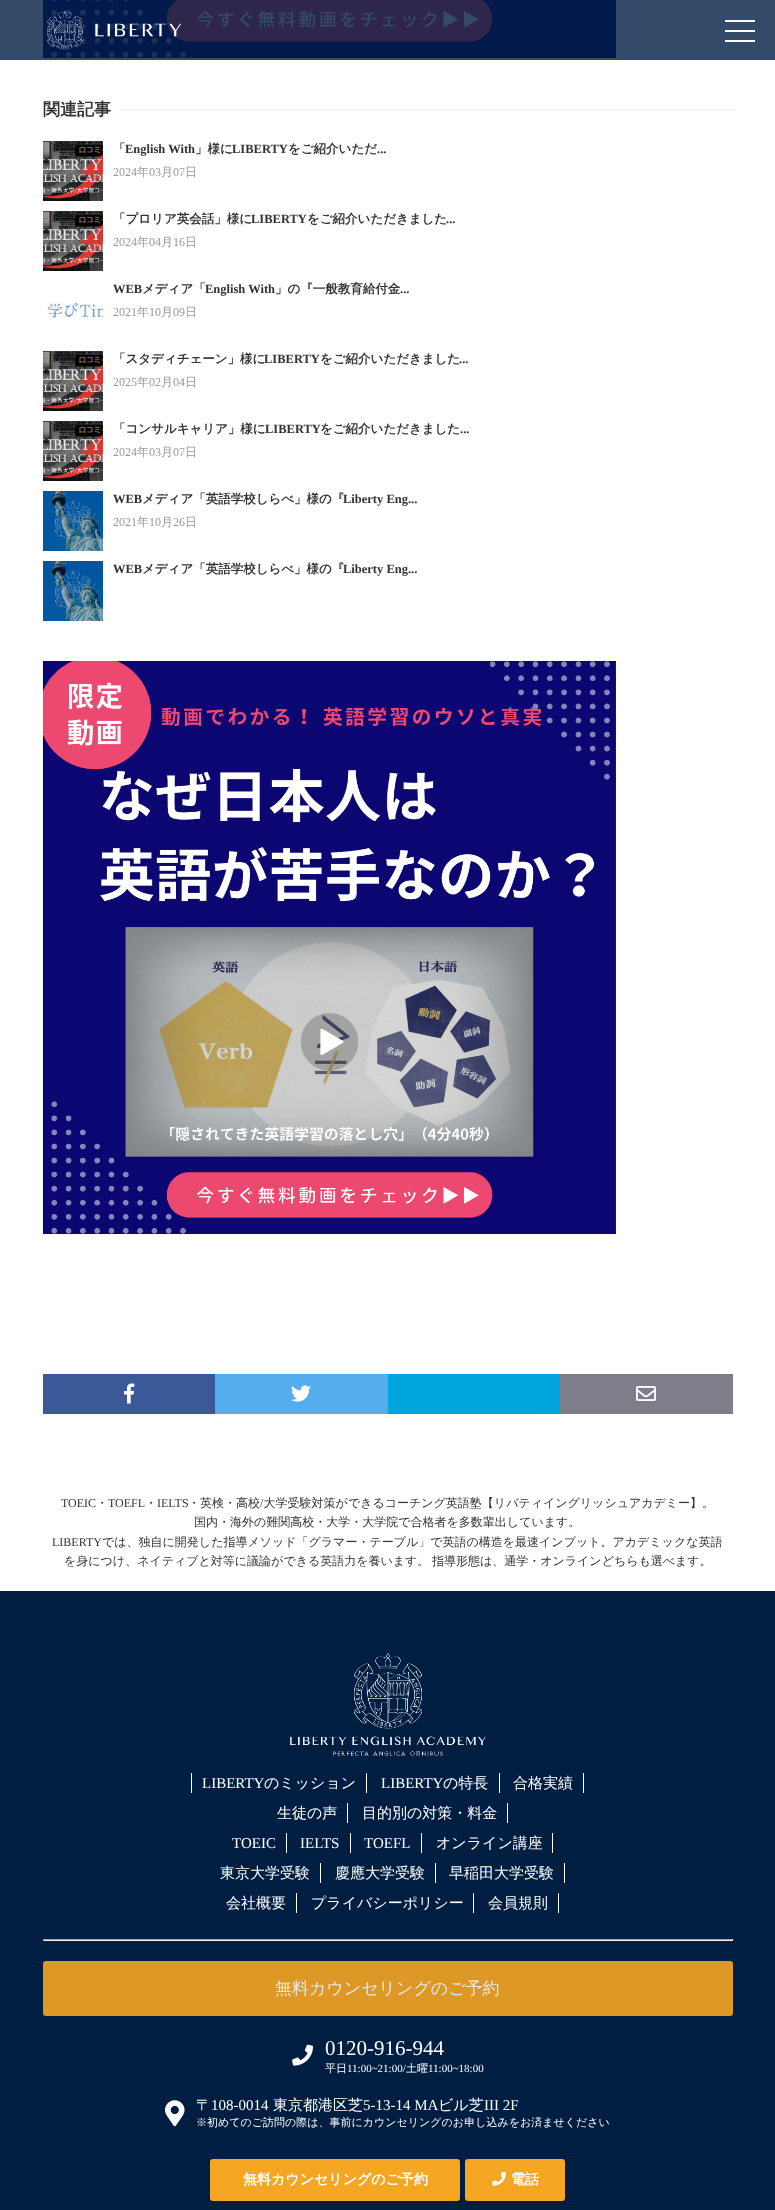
<svg xmlns="http://www.w3.org/2000/svg" width="775" height="2210" viewBox="0 0 775 2210">
  <rect width="100%" height="100%" fill="#fff"/>
  <path d="M0 0h775v60H0z" fill="#334b68"/>
  <image x="43" y="0" width="573" height="58" href="img/2.png"/>
  <image x="46" y="10" width="136" height="40" href="img/1.png"/>
  <path d="M725 30h30v2H725z" fill="#fff"/>
  <path d="M725 20h30v2H725z" fill="#fff"/>
  <path d="M725 40h30v2H725z" fill="#fff"/>
  <path d="M121 109h612v1H121z" fill="#eee"/>
  <image x="43" y="141" width="60" height="60" href="img/3.png"/>
  <image x="43" y="211" width="60" height="60" href="img/4.png"/>
  <image x="47" y="303" width="56" height="15" href="img/5.png"/>
  <image x="43" y="351" width="60" height="60" href="img/3.png"/>
  <image x="43" y="421" width="60" height="60" href="img/3.png"/>
  <image x="43" y="491" width="60" height="60" href="img/6.png"/>
  <image x="43" y="561" width="60" height="60" href="img/6.png"/>
  <image x="42" y="661" width="574" height="573" href="img/7.png"/>
  <path d="M43 1374h172v40H43z" fill="#3b5998"/>
  <image x="124" y="1383" width="11" height="21" href="img/8.png"/>
  <path d="M215 1374h173v40H215z" fill="#55acee"/>
  <image x="291" y="1385" width="20" height="17" href="img/9.png"/>
  <path d="M388 1374h172v40H388z" fill="#00a4de"/>
  <path d="M560 1374h173v40H560z" fill="#7e7e8a"/>
  <image x="636" y="1386" width="20" height="15" href="img/10.png"/>
  <path d="M0 1591h775v619H0z" fill="#001e42"/>
  <image x="290" y="1653" width="196" height="103" href="img/11.png"/>
  <path d="M366 1773h1v20H366z" fill="#fff"/>
  <path d="M191 1773h1v20H191z" fill="#fff"/>
  <path d="M499 1773h1v20H499z" fill="#fff"/>
  <path d="M583 1773h1v20H583z" fill="#fff"/>
  <path d="M347 1803h1v20H347z" fill="#fff"/>
  <path d="M507 1803h1v20H507z" fill="#fff"/>
  <path d="M286 1833h1v20H286z" fill="#fff"/>
  <path d="M350 1833h1v20H350z" fill="#fff"/>
  <path d="M421 1833h1v20H421z" fill="#fff"/>
  <path d="M552 1833h1v20H552z" fill="#fff"/>
  <path d="M320 1863h1v20H320z" fill="#fff"/>
  <path d="M435 1863h1v20H435z" fill="#fff"/>
  <path d="M564 1863h1v20H564z" fill="#fff"/>
  <path d="M296 1893h1v20H296z" fill="#fff"/>
  <path d="M473 1893h1v20H473z" fill="#fff"/>
  <path d="M558 1893h1v20H558z" fill="#fff"/>
  <path d="M43 1939h690v1H43z" fill="#9f9f9f"/>
  <path d="M732 1939h1v2H732z" fill="#eee"/>
  <path d="M43 1940h690v1H43z" fill="#eee"/>
  <path d="M43 1939h1v2H43z" fill="#9f9f9f"/>
  <rect x="43" y="1961" width="690" height="55" rx="3" fill="#dd9826"/>
  <image x="292" y="2044" width="21" height="22" href="img/12.png"/>
  <image x="165" y="2100" width="20" height="27" href="img/13.png"/>
  <rect x="210" y="2159" width="250" height="42" rx="3" fill="#f5a623"/>
  <rect x="465" y="2159" width="100" height="42" rx="3" fill="#f5a623"/>
  <image x="492" y="2171" width="14" height="15" href="img/14.png"/>
  <text x="43" y="115" font-family="WenQuanYi Zen Hei" font-size="17" font-weight="bold" fill="#333">関連記事</text>
  <text x="113" y="153" font-family="WenQuanYi Zen Hei" font-size="12.5" font-weight="bold" fill="#333">「</text>
  <text x="125" y="153" font-family="Liberation Serif" font-size="12.5" font-weight="bold" fill="#333">English With</text>
  <text x="195" y="153" font-family="WenQuanYi Zen Hei" font-size="12.5" font-weight="bold" fill="#333">」様に</text>
  <text x="232" y="153" font-family="Liberation Serif" font-size="12.5" font-weight="bold" fill="#333">LIBERTY</text>
  <text x="288" y="153" font-family="WenQuanYi Zen Hei" font-size="12.5" font-weight="bold" fill="#333">をご紹介いただ</text>
  <text x="377" y="153" font-family="Liberation Serif" font-size="12.5" font-weight="bold" fill="#333">...</text>
  <text x="113" y="176" font-family="Liberation Serif" font-size="12" fill="#999">2024</text>
  <text x="137" y="176" font-family="WenQuanYi Zen Hei" font-size="12" font-weight="500" fill="#999">年</text>
  <text x="149" y="176" font-family="Liberation Serif" font-size="12" fill="#999">03</text>
  <text x="161" y="176" font-family="WenQuanYi Zen Hei" font-size="12" font-weight="500" fill="#999">月</text>
  <text x="173" y="176" font-family="Liberation Serif" font-size="12" fill="#999">07</text>
  <text x="185" y="176" font-family="WenQuanYi Zen Hei" font-size="12" font-weight="500" fill="#999">日</text>
  <text x="113" y="223" font-family="WenQuanYi Zen Hei" font-size="12.5" font-weight="bold" fill="#333">「プロリア英会話」様に</text>
  <text x="251" y="223" font-family="Liberation Serif" font-size="12.5" font-weight="bold" fill="#333">LIBERTY</text>
  <text x="307" y="223" font-family="WenQuanYi Zen Hei" font-size="12.5" font-weight="bold" fill="#333">をご紹介いただきました</text>
  <text x="446" y="223" font-family="Liberation Serif" font-size="12.5" font-weight="bold" fill="#333">...</text>
  <text x="113" y="246" font-family="Liberation Serif" font-size="12" fill="#999">2024</text>
  <text x="137" y="246" font-family="WenQuanYi Zen Hei" font-size="12" font-weight="500" fill="#999">年</text>
  <text x="149" y="246" font-family="Liberation Serif" font-size="12" fill="#999">04</text>
  <text x="161" y="246" font-family="WenQuanYi Zen Hei" font-size="12" font-weight="500" fill="#999">月</text>
  <text x="173" y="246" font-family="Liberation Serif" font-size="12" fill="#999">16</text>
  <text x="185" y="246" font-family="WenQuanYi Zen Hei" font-size="12" font-weight="500" fill="#999">日</text>
  <text x="113" y="293" font-family="Liberation Serif" font-size="12.5" font-weight="bold" fill="#333">WEB</text>
  <text x="142" y="293" font-family="WenQuanYi Zen Hei" font-size="12.5" font-weight="bold" fill="#333">メディア「</text>
  <text x="205" y="293" font-family="Liberation Serif" font-size="12.5" font-weight="bold" fill="#333">English With</text>
  <text x="275" y="293" font-family="WenQuanYi Zen Hei" font-size="12.5" font-weight="bold" fill="#333">」の『一般教育給付金</text>
  <text x="400" y="293" font-family="Liberation Serif" font-size="12.5" font-weight="bold" fill="#333">...</text>
  <text x="113" y="316" font-family="Liberation Serif" font-size="12" fill="#999">2021</text>
  <text x="137" y="316" font-family="WenQuanYi Zen Hei" font-size="12" font-weight="500" fill="#999">年</text>
  <text x="149" y="316" font-family="Liberation Serif" font-size="12" fill="#999">10</text>
  <text x="161" y="316" font-family="WenQuanYi Zen Hei" font-size="12" font-weight="500" fill="#999">月</text>
  <text x="173" y="316" font-family="Liberation Serif" font-size="12" fill="#999">09</text>
  <text x="185" y="316" font-family="WenQuanYi Zen Hei" font-size="12" font-weight="500" fill="#999">日</text>
  <text x="113" y="363" font-family="WenQuanYi Zen Hei" font-size="12.5" font-weight="bold" fill="#333">「スタディチェーン」様に</text>
  <text x="264" y="363" font-family="Liberation Serif" font-size="12.5" font-weight="bold" fill="#333">LIBERTY</text>
  <text x="320" y="363" font-family="WenQuanYi Zen Hei" font-size="12.5" font-weight="bold" fill="#333">をご紹介いただきました</text>
  <text x="459" y="363" font-family="Liberation Serif" font-size="12.5" font-weight="bold" fill="#333">...</text>
  <text x="113" y="386" font-family="Liberation Serif" font-size="12" fill="#999">2025</text>
  <text x="137" y="386" font-family="WenQuanYi Zen Hei" font-size="12" font-weight="500" fill="#999">年</text>
  <text x="149" y="386" font-family="Liberation Serif" font-size="12" fill="#999">02</text>
  <text x="161" y="386" font-family="WenQuanYi Zen Hei" font-size="12" font-weight="500" fill="#999">月</text>
  <text x="173" y="386" font-family="Liberation Serif" font-size="12" fill="#999">04</text>
  <text x="185" y="386" font-family="WenQuanYi Zen Hei" font-size="12" font-weight="500" fill="#999">日</text>
  <text x="113" y="433" font-family="WenQuanYi Zen Hei" font-size="12.5" font-weight="bold" fill="#333">「コンサルキャリア」様に</text>
  <text x="265" y="433" font-family="Liberation Serif" font-size="12.5" font-weight="bold" fill="#333">LIBERTY</text>
  <text x="320" y="433" font-family="WenQuanYi Zen Hei" font-size="12.5" font-weight="bold" fill="#333">をご紹介いただきました</text>
  <text x="460" y="433" font-family="Liberation Serif" font-size="12.5" font-weight="bold" fill="#333">...</text>
  <text x="113" y="456" font-family="Liberation Serif" font-size="12" fill="#999">2024</text>
  <text x="137" y="456" font-family="WenQuanYi Zen Hei" font-size="12" font-weight="500" fill="#999">年</text>
  <text x="149" y="456" font-family="Liberation Serif" font-size="12" fill="#999">03</text>
  <text x="161" y="456" font-family="WenQuanYi Zen Hei" font-size="12" font-weight="500" fill="#999">月</text>
  <text x="173" y="456" font-family="Liberation Serif" font-size="12" fill="#999">07</text>
  <text x="185" y="456" font-family="WenQuanYi Zen Hei" font-size="12" font-weight="500" fill="#999">日</text>
  <text x="113" y="503" font-family="Liberation Serif" font-size="12.5" font-weight="bold" fill="#333">WEB</text>
  <text x="142" y="503" font-family="WenQuanYi Zen Hei" font-size="12.5" font-weight="bold" fill="#333">メディア「英語学校しらべ」様の『</text>
  <text x="343" y="503" font-family="Liberation Serif" font-size="12.5" font-weight="bold" fill="#333">Liberty Eng...</text>
  <text x="113" y="526" font-family="Liberation Serif" font-size="12" fill="#999">2021</text>
  <text x="137" y="526" font-family="WenQuanYi Zen Hei" font-size="12" font-weight="500" fill="#999">年</text>
  <text x="149" y="526" font-family="Liberation Serif" font-size="12" fill="#999">10</text>
  <text x="161" y="526" font-family="WenQuanYi Zen Hei" font-size="12" font-weight="500" fill="#999">月</text>
  <text x="173" y="526" font-family="Liberation Serif" font-size="12" fill="#999">26</text>
  <text x="185" y="526" font-family="WenQuanYi Zen Hei" font-size="12" font-weight="500" fill="#999">日</text>
  <text x="113" y="573" font-family="Liberation Serif" font-size="12.5" font-weight="bold" fill="#333">WEB</text>
  <text x="142" y="573" font-family="WenQuanYi Zen Hei" font-size="12.5" font-weight="bold" fill="#333">メディア「英語学校しらべ」様の『</text>
  <text x="343" y="573" font-family="Liberation Serif" font-size="12.5" font-weight="bold" fill="#333">Liberty Eng...</text>
  <g font-family="Liberation Serif" font-size="12" fill="#333">
    <text x="61" y="1507">TOEIC</text>
    <text x="108" y="1507">TOEFL</text>
    <text x="157" y="1507">IELTS</text>
  </g>
  <g font-family="WenQuanYi Zen Hei" font-size="12" font-weight="500" fill="#333">
    <text x="188" y="1507">・英検・高校 大学受験対策ができるコーチング英語塾【リバティイングリッシュアカデミー】。</text>
    <text x="96" y="1507">・</text>
    <text x="145" y="1507">・</text>
  </g>
  <text x="260" y="1507" font-family="Liberation Serif" font-size="12" fill="#333">/</text>
  <text x="194" y="1526" font-family="WenQuanYi Zen Hei" font-size="12" font-weight="500" fill="#333">国内・海外の難関高校・大学・大学院で合格者を多数輩出しています。</text>
  <text x="52" y="1546" font-family="Liberation Serif" font-size="12" fill="#333">LIBERTY</text>
  <g font-family="WenQuanYi Zen Hei" font-size="12" font-weight="500" fill="#333">
    <text x="102" y="1546">では、独自に開発した指導メソッド「グラマー・テーブル」で英語の構造を最速インプット。アカデミックな英語</text>
    <text x="64" y="1565" word-spacing="-1">を身につけ、ネイティブと対等に議論ができる英語力を養います。 指導形態は、通学・オンラインどちらも選べます。</text>
  </g>
  <text x="202" y="1788" font-family="Liberation Serif" font-size="15" fill="#fff">LIBERTY</text>
  <text x="264" y="1788" font-family="WenQuanYi Zen Hei" font-size="15" font-weight="500" fill="#fff">のミッション</text>
  <text x="381" y="1788" font-family="Liberation Serif" font-size="15" fill="#fff">LIBERTY</text>
  <g font-family="WenQuanYi Zen Hei" font-size="15" font-weight="500" fill="#fff">
    <text x="443" y="1788">の特長</text>
    <text x="513" y="1788">合格実績</text>
    <text x="277" y="1818">生徒の声</text>
    <text x="362" y="1818">目的別の対策・料金</text>
  </g>
  <g font-family="Liberation Serif" font-size="15" fill="#fff">
    <text x="232" y="1848">TOEIC</text>
    <text x="300" y="1848">IELTS</text>
    <text x="364" y="1848">TOEFL</text>
  </g>
  <g font-family="WenQuanYi Zen Hei" font-size="15" font-weight="500" fill="#fff">
    <text x="436" y="1848">オンライン講座</text>
    <text x="220" y="1878">東京大学受験</text>
    <text x="335" y="1878">慶應大学受験</text>
    <text x="449" y="1878">早稲田大学受験</text>
    <text x="226" y="1908">会社概要</text>
    <text x="311" y="1908">プライバシーポリシー</text>
    <text x="488" y="1908">会員規則</text>
  </g>
  <text x="275" y="1994" font-family="WenQuanYi Zen Hei" font-size="17" font-weight="500" fill="#e6e9ec">無料カウンセリングのご予約</text>
  <text x="325" y="2055" font-family="Liberation Serif" font-size="21" fill="#fff">0120-916-944</text>
  <text x="325" y="2072" font-family="WenQuanYi Zen Hei" font-size="11" font-weight="500" fill="#fff">平日</text>
  <text x="347" y="2072" font-family="Liberation Serif" font-size="11" fill="#fff">11:00~21:00/</text>
  <text x="406" y="2072" font-family="WenQuanYi Zen Hei" font-size="11" font-weight="500" fill="#fff">土曜</text>
  <text x="428" y="2072" font-family="Liberation Serif" font-size="11" fill="#fff">11:00~18:00</text>
  <text x="196" y="2110" font-family="WenQuanYi Zen Hei" font-size="15" font-weight="500" fill="#fff">〒</text>
  <text x="211" y="2110" font-family="Liberation Serif" font-size="15" fill="#fff">108-0014</text>
  <text x="273" y="2110" font-family="WenQuanYi Zen Hei" font-size="15" font-weight="500" fill="#fff">東京都港区芝</text>
  <text x="363" y="2110" font-family="Liberation Serif" font-size="15" fill="#fff">5-13-14 MA</text>
  <text x="438" y="2110" font-family="WenQuanYi Zen Hei" font-size="15" font-weight="500" fill="#fff">ビル芝</text>
  <text x="484" y="2110" font-family="Liberation Serif" font-size="15" fill="#fff">III 2F</text>
  <text x="196" y="2126" font-family="WenQuanYi Zen Hei" font-size="11" font-weight="500" fill="#fff">※初めてのご訪問の際は、事前にカウンセリングのお申し込みをお済ませください</text>
  <g font-family="WenQuanYi Zen Hei" font-size="14" font-weight="bold" fill="#fff">
    <text x="243" y="2184">無料カウンセリングのご予約</text>
    <text x="511" y="2184">電話</text>
  </g>
</svg>
